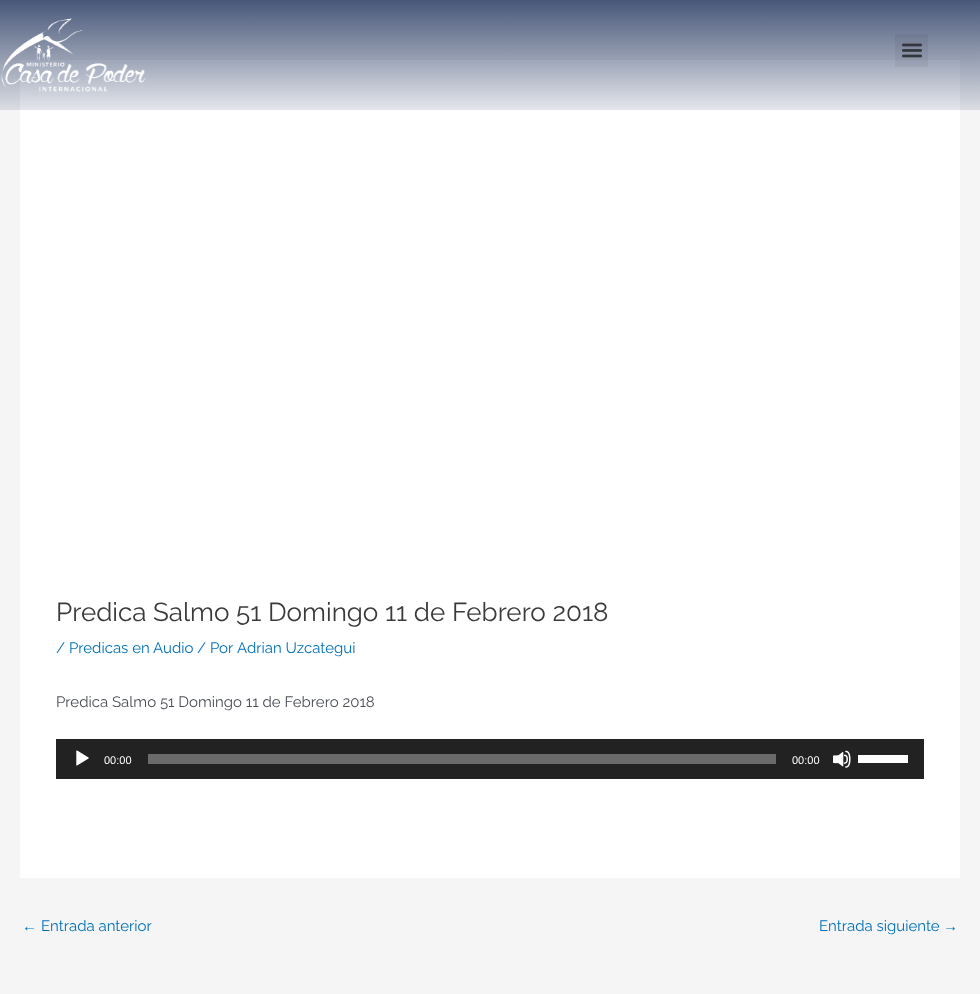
<svg xmlns="http://www.w3.org/2000/svg" width="980" height="994" viewBox="0 0 980 994">
  <defs>
    <linearGradient id="g1" gradientUnits="userSpaceOnUse" x1="490" y1="0" x2="490" y2="110"><stop offset="0" stop-color="#1a2d59" stop-opacity="0.79"/><stop offset="1" stop-color="#1a2d59" stop-opacity="0.12"/></linearGradient>
  </defs>
  <rect width="100%" height="100%" fill="#f5f5f5"/>
  <path d="M20 60h940v818H20z" fill="#fff"/>
  <path d="M0 0h980v110H0z" fill="url(#g1)"/>
  <image x="1" y="18" width="145" height="74" href="img/1.png"/>
  <path d="M895 34h33v33H895z" fill="#0000000d"/>
  <image x="902" y="43" width="20" height="15" href="img/2.png"/>
  <path d="M56 739h868v40H56z" fill="#222"/>
  <image x="76" y="750" width="13" height="16" href="img/3.png"/>
  <path d="M148 754h628v10H148z" fill="#6b6b6b"/>
  <image x="833" y="750" width="18" height="18" href="img/4.png"/>
  <path d="M858 755h50v8H858z" fill="#fff"/>
  <text x="56" y="621" font-family="Raleway" font-size="26" font-weight="100" fill="#3a3a3a">Predica Salmo 51 Domingo 11 de Febrero 2018</text>
  <g font-family="Raleway" font-size="15" font-weight="100" fill="#0170b9">
    <text x="56" y="653">/ Predicas en Audio</text>
    <text x="197" y="653">/ Por</text>
    <text x="237" y="653">Adrian Uzcategui</text>
  </g>
  <text x="56" y="707" font-family="Raleway" font-size="15" font-weight="100" fill="#4b4f58">Predica Salmo 51 Domingo 11 de Febrero 2018</text>
  <g font-family="Liberation Sans" font-size="11" fill="#fff">
    <text x="104" y="764">00:00</text>
    <text x="792" y="764">00:00</text>
  </g>
  <text x="22" y="931" font-family="Liberation Sans" font-size="15" fill="#0170b9">←</text>
  <g font-family="Raleway" font-size="15" font-weight="100" fill="#0170b9">
    <text x="41" y="931">Entrada anterior</text>
    <text x="819" y="931">Entrada siguiente</text>
  </g>
  <text x="943" y="931" font-family="Liberation Sans" font-size="15" fill="#0170b9">→</text>
</svg>
